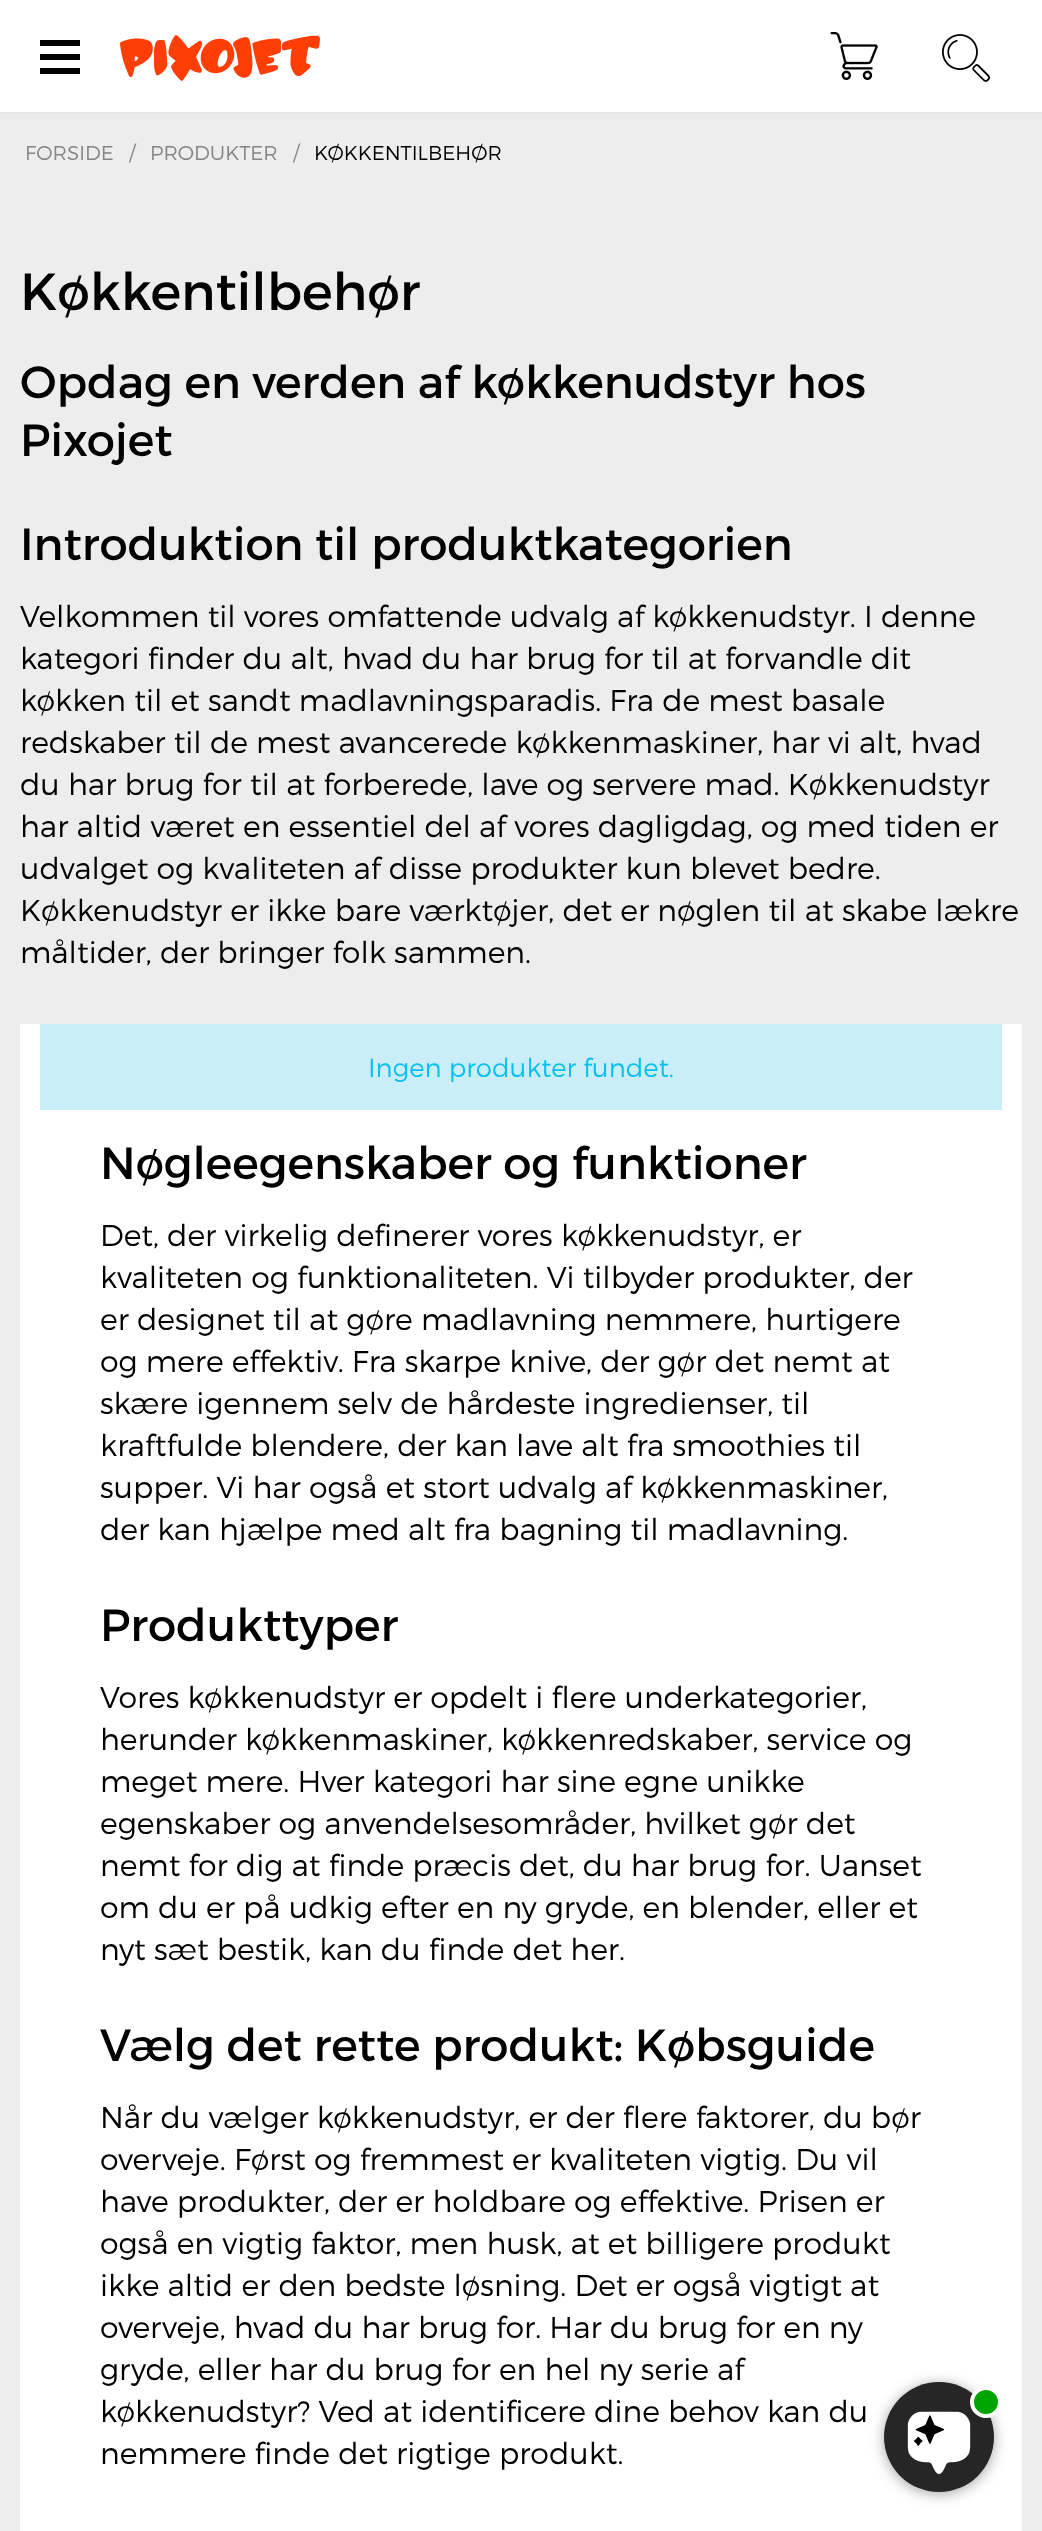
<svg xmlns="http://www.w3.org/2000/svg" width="1042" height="2531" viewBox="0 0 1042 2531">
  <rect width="100%" height="100%" fill="#ededed"/>
  <path d="M0 112h1042v2H0z" fill="#e5e5e5"/>
  <path d="M0 0h1042v112H0z" fill="#fff"/>
  <path d="M40 40h40v6H40z" fill="#000"/>
  <path d="M40 54h40v6H40z" fill="#000"/>
  <path d="M40 68h40v6H40z" fill="#000"/>
  <image x="120" y="35" width="200" height="46" href="img/1.png"/>
  <image x="830" y="32" width="48" height="48" href="img/2.png"/>
  <image x="942" y="34" width="48" height="48" href="img/3.png"/>
  <path d="M20 1024h1002v1507H20z" fill="#fff"/>
  <path d="M40 1024h962v86H40z" fill="#caeef7"/>
  <rect x="884" y="2384" width="110" height="110" rx="55" fill="#00000059" filter="blur(7px)"/>
  <circle cx="939" cy="2437" r="55" fill="#262626"/>
  <image x="907" y="2411" width="64" height="63" href="img/4.png"/>
  <circle cx="986" cy="2402" r="14" fill="#00a401" stroke="#fff" stroke-width="4"/>
  <g font-family="Montserrat" font-size="20" font-weight="300" fill="#858585">
    <text x="25" y="160">FORSIDE</text>
    <text x="129" y="160">/</text>
    <text x="150" y="160">PRODUKTER</text>
    <text x="293" y="160">/</text>
  </g>
  <text x="314" y="160" font-family="Montserrat" font-size="20" font-weight="300" fill="#000">KØKKENTILBEHØR</text>
  <text x="20" y="310" font-family="Montserrat" font-size="52" fill="#000">Køkkentilbehør</text>
  <g font-family="Montserrat" font-size="45" fill="#000">
    <text x="20" y="398">Opdag en verden af køkkenudstyr hos</text>
    <text x="20" y="456">Pixojet</text>
    <text x="20" y="560">Introduktion til produktkategorien</text>
  </g>
  <g font-family="Montserrat" font-size="30" font-weight="300" fill="#000">
    <text x="20" y="627">Velkommen til vores omfattende udvalg af køkkenudstyr. I denne</text>
    <text x="20" y="669">kategori finder du alt, hvad du har brug for til at forvandle dit</text>
    <text x="20" y="711">køkken til et sandt madlavningsparadis. Fra de mest basale</text>
    <text x="20" y="753">redskaber til de mest avancerede køkkenmaskiner, har vi alt, hvad</text>
    <text x="20" y="795">du har brug for til at forberede, lave og servere mad. Køkkenudstyr</text>
    <text x="20" y="837">har altid været en essentiel del af vores dagligdag, og med tiden er</text>
    <text x="20" y="879">udvalget og kvaliteten af disse produkter kun blevet bedre.</text>
    <text x="20" y="921">Køkkenudstyr er ikke bare værktøjer, det er nøglen til at skabe lækre</text>
    <text x="20" y="963">måltider, der bringer folk sammen.</text>
  </g>
  <text x="368" y="1077" font-family="Montserrat" font-size="26" font-weight="300" fill="#08bfed">Ingen produkter fundet.</text>
  <text x="100" y="1179" font-family="Montserrat" font-size="45" fill="#000">Nøgleegenskaber og funktioner</text>
  <g font-family="Montserrat" font-size="30" font-weight="300" fill="#000">
    <text x="100" y="1246">Det, der virkelig definerer vores køkkenudstyr, er</text>
    <text x="100" y="1288">kvaliteten og funktionaliteten. Vi tilbyder produkter, der</text>
    <text x="100" y="1330">er designet til at gøre madlavning nemmere, hurtigere</text>
    <text x="100" y="1372">og mere effektiv. Fra skarpe knive, der gør det nemt at</text>
    <text x="100" y="1414">skære igennem selv de hårdeste ingredienser, til</text>
    <text x="100" y="1456">kraftfulde blendere, der kan lave alt fra smoothies til</text>
    <text x="100" y="1498">supper. Vi har også et stort udvalg af køkkenmaskiner,</text>
    <text x="100" y="1540">der kan hjælpe med alt fra bagning til madlavning.</text>
  </g>
  <text x="100" y="1641" font-family="Montserrat" font-size="45" fill="#000">Produkttyper</text>
  <g font-family="Montserrat" font-size="30" font-weight="300" fill="#000">
    <text x="100" y="1708">Vores køkkenudstyr er opdelt i flere underkategorier,</text>
    <text x="100" y="1750">herunder køkkenmaskiner, køkkenredskaber, service og</text>
    <text x="100" y="1792">meget mere. Hver kategori har sine egne unikke</text>
    <text x="100" y="1834">egenskaber og anvendelsesområder, hvilket gør det</text>
    <text x="100" y="1876">nemt for dig at finde præcis det, du har brug for. Uanset</text>
    <text x="100" y="1918">om du er på udkig efter en ny gryde, en blender, eller et</text>
    <text x="100" y="1960">nyt sæt bestik, kan du finde det her.</text>
  </g>
  <text x="100" y="2061" font-family="Montserrat" font-size="45" fill="#000">Vælg det rette produkt: Købsguide</text>
  <g font-family="Montserrat" font-size="30" font-weight="300" fill="#000">
    <text x="100" y="2128">Når du vælger køkkenudstyr, er der flere faktorer, du bør</text>
    <text x="100" y="2170">overveje. Først og fremmest er kvaliteten vigtig. Du vil</text>
    <text x="100" y="2212">have produkter, der er holdbare og effektive. Prisen er</text>
    <text x="100" y="2254">også en vigtig faktor, men husk, at et billigere produkt</text>
    <text x="100" y="2296">ikke altid er den bedste løsning. Det er også vigtigt at</text>
    <text x="100" y="2338">overveje, hvad du har brug for. Har du brug for en ny</text>
    <text x="100" y="2380">gryde, eller har du brug for en hel ny serie af</text>
    <text x="100" y="2422">køkkenudstyr? Ved at identificere dine behov kan du</text>
    <text x="100" y="2464">nemmere finde det rigtige produkt.</text>
  </g>
</svg>
